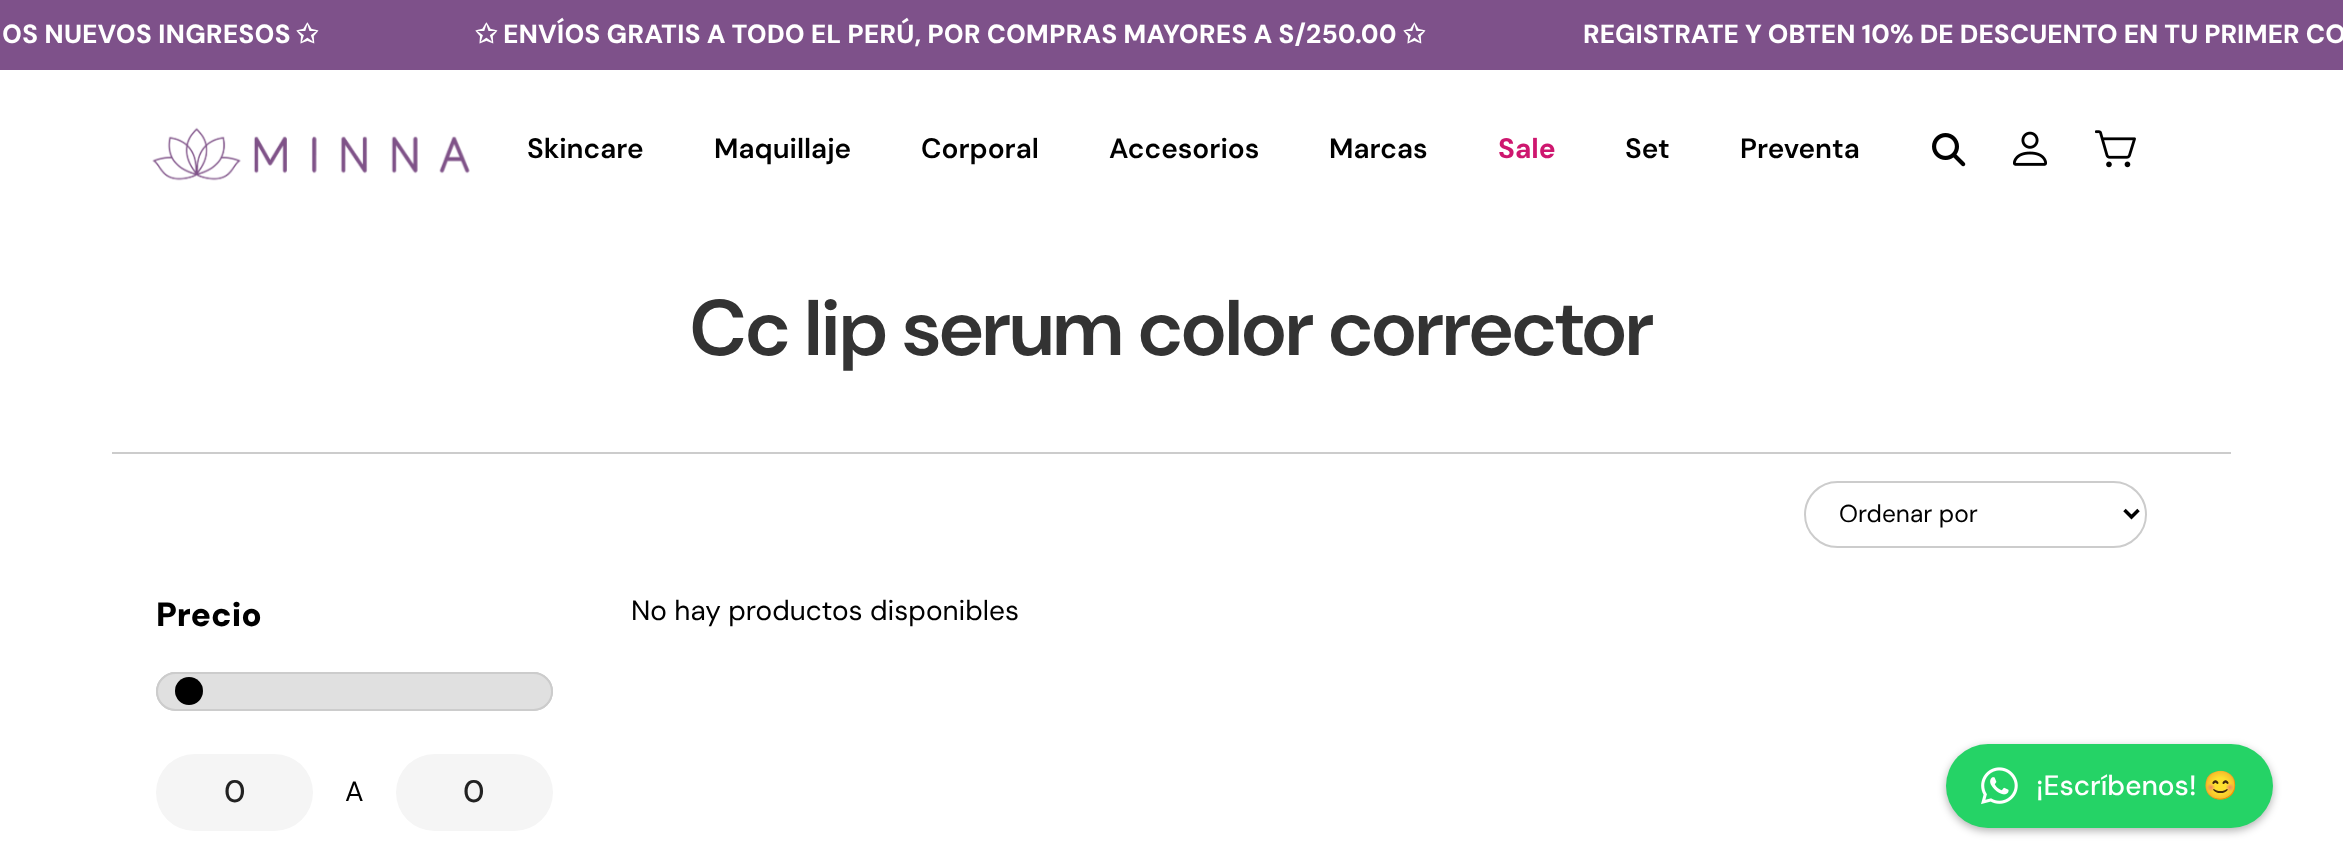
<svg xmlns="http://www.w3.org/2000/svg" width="2343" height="862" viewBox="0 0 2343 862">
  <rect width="100%" height="100%" fill="#fff"/>
  <path d="M0 0h2343v70H0z" fill="#7e518a"/>
  <image x="152" y="127" width="318" height="54" href="img/1.png"/>
  <image x="1932" y="133" width="34" height="34" href="img/2.png"/>
  <image x="2013" y="131" width="34" height="35" href="img/3.png"/>
  <image x="2095" y="130" width="41" height="38" href="img/4.png"/>
  <path d="M112 452h2119v2H112z" fill="#ccc"/>
  <rect x="1805" y="482" width="341" height="65" rx="32.5" fill="none" stroke="#ccc" stroke-width="2"/>
  <path d="M2124.5 510L2131.5 517L2138.5 510" fill="none" stroke="#000" stroke-width="3.5"/>
  <rect x="157" y="673" width="395" height="37" rx="18.5" fill="none" stroke="#ccc" stroke-width="2"/>
  <rect x="157" y="673" width="395" height="37" rx="18.5" fill="#e0e0e0" stroke="#ccc" stroke-width="2"/>
  <circle cx="189" cy="691" r="14" fill="#000"/>
  <rect x="156" y="754" width="157" height="77" rx="38.5" fill="#f5f5f5"/>
  <rect x="396" y="754" width="157" height="77" rx="38.5" fill="#f5f5f5"/>
  <rect x="1946" y="747" width="327" height="84" rx="42" fill="#0000004d" filter="blur(4.5px)"/>
  <rect x="1946" y="744" width="327" height="84" rx="42" fill="#25d366"/>
  <image x="1981" y="767" width="37" height="38" href="img/5.png"/>
  <text x="2" y="43" font-family="DM Sans" font-size="26.25" font-weight="800" fill="#fff">OS NUEVOS INGRESOS</text>
  <g font-family="DejaVu Sans" font-size="26.25" font-weight="bold" fill="#fff">
    <text x="296" y="43">✩</text>
    <text x="475" y="43">✩</text>
  </g>
  <text x="503" y="43" word-spacing="-0.25" font-family="DM Sans" font-size="26.25" font-weight="800" fill="#fff">ENVÍOS GRATIS A TODO EL PERÚ, POR COMPRAS MAYORES A S/250.00</text>
  <text x="1403" y="43" font-family="DejaVu Sans" font-size="26.25" font-weight="bold" fill="#fff">✩</text>
  <text x="1583" y="43" font-family="'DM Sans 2'" font-size="26.25" font-weight="800" fill="#fff">REGISTRATE Y OBTEN 10% DE DESCUENTO EN TU PRIMER CO</text>
  <g font-family="'DM Sans 2'" font-size="28" font-weight="600" fill="#000">
    <text x="527" y="158">Skincare</text>
    <text x="714" y="158">Maquillaje</text>
    <text x="921" y="158">Corporal</text>
    <text x="1109" y="158">Accesorios</text>
    <text x="1329" y="158">Marcas</text>
  </g>
  <text x="1498" y="158" font-family="DM Sans" font-size="28" font-weight="bold" fill="#ce176f">Sale</text>
  <g font-family="'DM Sans 2'" font-size="28" font-weight="600" fill="#000">
    <text x="1625" y="158">Set</text>
    <text x="1740" y="158">Preventa</text>
  </g>
  <text x="690" y="355" font-family="DM Sans" font-size="78.75" font-weight="600" fill="#333">Cc lip serum color corrector</text>
  <text x="1839" y="522" font-family="DM Sans" font-size="24.5" fill="#000">Ordenar por</text>
  <text x="631" y="620" font-family="'DM Sans 2'" font-size="28" fill="#000">No hay productos disponibles</text>
  <text x="156" y="626" font-family="DM Sans" font-size="33.5" font-weight="900" fill="#000">Precio</text>
  <text x="224" y="802" font-family="DM Sans" font-size="31" font-weight="500" fill="#222">0</text>
  <text x="345" y="801" font-family="'DM Sans 2'" font-size="28" fill="#000">A</text>
  <text x="463" y="802" font-family="DM Sans" font-size="31" font-weight="500" fill="#222">0</text>
  <text x="2036" y="795" font-family="'DM Sans 2'" font-size="28" font-weight="500" fill="#fff">¡Escríbenos!</text>
  <text x="2203" y="795" font-family="Noto Color Emoji" font-size="28" fill="#fff">😊</text>
</svg>
